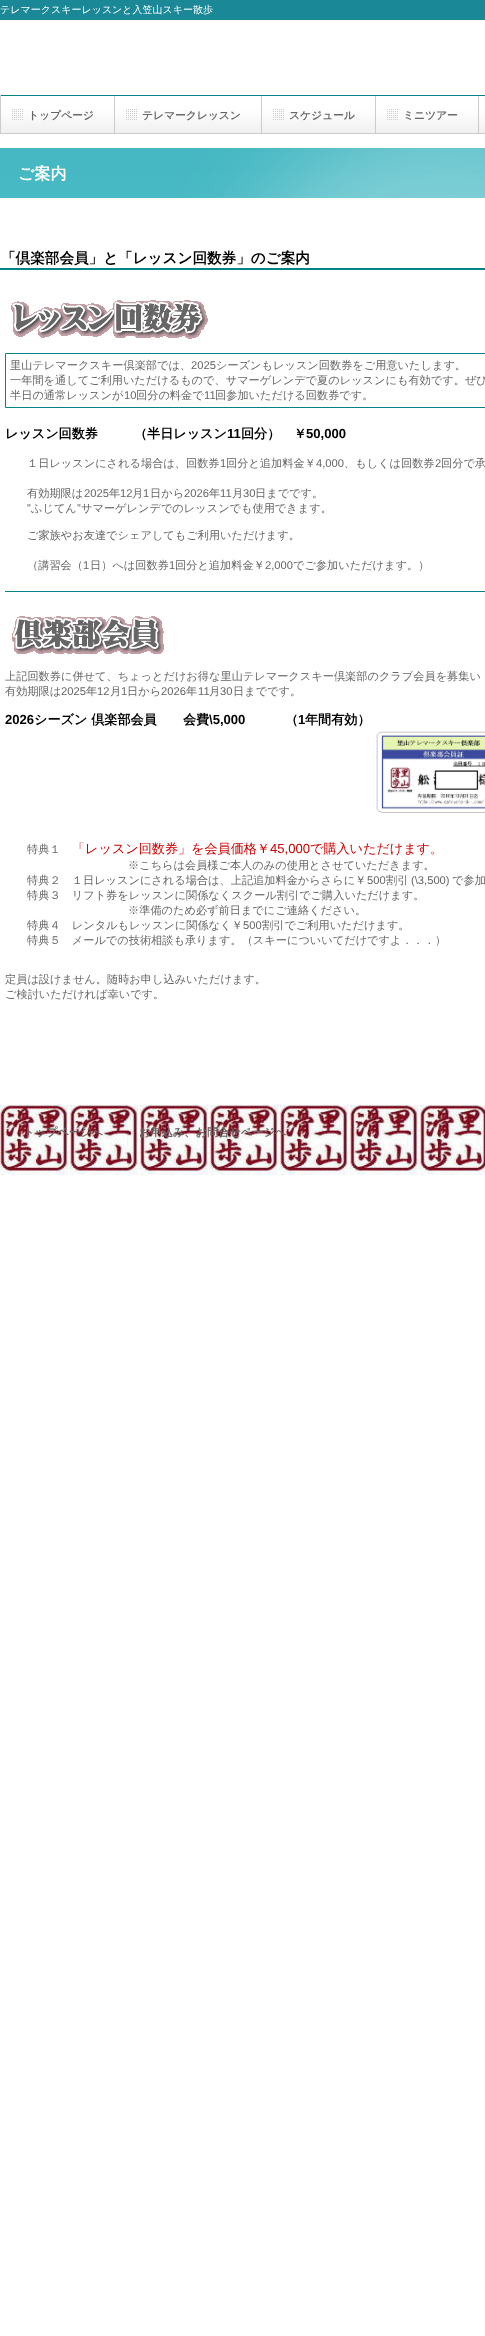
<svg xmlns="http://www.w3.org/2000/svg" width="485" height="2336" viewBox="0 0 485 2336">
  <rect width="100%" height="100%" fill="#fff"/>
  <image x="0" y="0" width="485" height="134" href="img/1.png"/>
  <image x="0" y="1105" width="485" height="70" href="img/2.png"/>
  <path d="M0 95h1v38H0z" fill="#ccc"/>
  <path d="M114 96h1v37H114z" fill="#ccc"/>
  <image x="12" y="109" width="11" height="11" href="img/3.png"/>
  <path d="M261 96h1v37H261z" fill="#ccc"/>
  <image x="126" y="109" width="11" height="11" href="img/4.png"/>
  <path d="M375 96h1v37H375z" fill="#ccc"/>
  <image x="273" y="109" width="11" height="11" href="img/3.png"/>
  <path d="M478 96h1v37H478z" fill="#ccc"/>
  <image x="387" y="109" width="11" height="11" href="img/3.png"/>
  <image x="0" y="148" width="485" height="50" href="img/5.png"/>
  <path d="M0 268h485v2H0z" fill="#01838a"/>
  <image x="11" y="300" width="197" height="39" href="img/6.png"/>
  <path d="M5.5 353.5h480v54H5.5z" fill="none" stroke="#01838a"/>
  <path d="M5 591h480v1H5z" fill="#01838a"/>
  <image x="12" y="616" width="152" height="38" href="img/7.png"/>
  <image x="376" y="731" width="109" height="82" href="img/8.png"/>
  <text x="0" y="13" font-family="WenQuanYi Zen Hei" font-size="10" font-weight="500" fill="#fff">テレマークスキーレッスンと入笠山スキー散歩</text>
  <g font-family="WenQuanYi Zen Hei" font-size="10.75" font-weight="bold" fill="#666">
    <text x="28" y="119">トップページ</text>
    <text x="142" y="119">テレマークレッスン</text>
    <text x="289" y="119">スケジュール</text>
    <text x="403" y="119">ミニツアー</text>
  </g>
  <text x="18" y="179" font-family="WenQuanYi Zen Hei" font-size="16" font-weight="bold" fill="#fff">ご案内</text>
  <text x="1" y="263" font-family="WenQuanYi Zen Hei" font-size="14.6" font-weight="bold" fill="#000">「倶楽部会員」と「レッスン回数券」のご案内</text>
  <text x="10" y="369" font-family="WenQuanYi Zen Hei" font-size="11.2" font-weight="500" fill="#666">里山テレマークスキー倶楽部では、</text>
  <text x="191" y="369" font-family="Liberation Sans" font-size="11.2" fill="#666">2025</text>
  <g font-family="WenQuanYi Zen Hei" font-size="11.2" font-weight="500" fill="#666">
    <text x="216" y="369">シーズンもレッスン回数券をご用意いたします。</text>
    <text x="10" y="384">一年間を通してご利用いただけるもので、サマーゲレンデで夏のレッスンにも有効です。ぜひ</text>
    <text x="10" y="399">半日の通常レッスンが</text>
  </g>
  <text x="124" y="399" font-family="Liberation Sans" font-size="11.2" fill="#666">10</text>
  <text x="136" y="399" font-family="WenQuanYi Zen Hei" font-size="11.2" font-weight="500" fill="#666">回分の料金で</text>
  <text x="204" y="399" font-family="Liberation Sans" font-size="11.2" fill="#666">11</text>
  <text x="215" y="399" font-family="WenQuanYi Zen Hei" font-size="11.2" font-weight="500" fill="#666">回参加いただける回数券です。</text>
  <g font-family="WenQuanYi Zen Hei" font-size="13.1" font-weight="bold" fill="#000">
    <text x="5" y="438">レッスン回数券</text>
    <text x="134" y="438">（半日レッスン</text>
  </g>
  <text x="227" y="438" font-family="Liberation Sans" font-size="13.1" font-weight="bold" fill="#000">11</text>
  <text x="241" y="438" font-family="WenQuanYi Zen Hei" font-size="13.1" font-weight="bold" fill="#000">回分）　￥</text>
  <text x="306" y="438" font-family="Liberation Sans" font-size="13.1" font-weight="bold" fill="#000">50,000</text>
  <text x="27" y="467" font-family="WenQuanYi Zen Hei" font-size="11.2" font-weight="500" fill="#666">１日レッスンにされる場合は、回数券</text>
  <text x="220" y="467" font-family="Liberation Sans" font-size="11.2" fill="#666">1</text>
  <text x="226" y="467" font-family="WenQuanYi Zen Hei" font-size="11.2" font-weight="500" fill="#666">回分と追加料金￥</text>
  <text x="316" y="467" font-family="Liberation Sans" font-size="11.2" fill="#666">4,000</text>
  <text x="344" y="467" font-family="WenQuanYi Zen Hei" font-size="11.2" font-weight="500" fill="#666">、もしくは回数券</text>
  <text x="435" y="467" font-family="Liberation Sans" font-size="11.2" fill="#666">2</text>
  <g font-family="WenQuanYi Zen Hei" font-size="11.2" font-weight="500" fill="#666">
    <text x="441" y="467">回分で承</text>
    <text x="27" y="497">有効期限は</text>
  </g>
  <text x="84" y="497" font-family="Liberation Sans" font-size="11.2" fill="#666">2025</text>
  <text x="109" y="497" font-family="WenQuanYi Zen Hei" font-size="11.2" font-weight="500" fill="#666">年</text>
  <text x="120" y="497" font-family="Liberation Sans" font-size="11.2" fill="#666">12</text>
  <text x="132" y="497" font-family="WenQuanYi Zen Hei" font-size="11.2" font-weight="500" fill="#666">月</text>
  <text x="143" y="497" font-family="Liberation Sans" font-size="11.2" fill="#666">1</text>
  <text x="150" y="497" font-family="WenQuanYi Zen Hei" font-size="11.2" font-weight="500" fill="#666">日から</text>
  <text x="184" y="497" font-family="Liberation Sans" font-size="11.2" fill="#666">2026</text>
  <text x="209" y="497" font-family="WenQuanYi Zen Hei" font-size="11.2" font-weight="500" fill="#666">年</text>
  <text x="220" y="497" font-family="Liberation Sans" font-size="11.2" fill="#666">11</text>
  <text x="232" y="497" font-family="WenQuanYi Zen Hei" font-size="11.2" font-weight="500" fill="#666">月</text>
  <text x="243" y="497" font-family="Liberation Sans" font-size="11.2" fill="#666">30</text>
  <text x="255" y="497" font-family="WenQuanYi Zen Hei" font-size="11.2" font-weight="500" fill="#666">日までです。</text>
  <text x="27" y="512" font-family="Liberation Sans" font-size="11.2" fill="#666">”</text>
  <text x="31" y="512" font-family="WenQuanYi Zen Hei" font-size="11.2" font-weight="500" fill="#666">ふじてん</text>
  <text x="77" y="512" font-family="Liberation Sans" font-size="11.2" fill="#666">”</text>
  <g font-family="WenQuanYi Zen Hei" font-size="11.2" font-weight="500" fill="#666">
    <text x="81" y="512">サマーゲレンデでのレッスンでも使用できます。</text>
    <text x="27" y="539">ご家族やお友達でシェアしてもご利用いただけます。</text>
    <text x="27" y="569">（講習会（</text>
  </g>
  <text x="83" y="569" font-family="Liberation Sans" font-size="11.2" fill="#666">1</text>
  <text x="90" y="569" font-family="WenQuanYi Zen Hei" font-size="11.2" font-weight="500" fill="#666">日）へは回数券</text>
  <text x="169" y="569" font-family="Liberation Sans" font-size="11.2" fill="#666">1</text>
  <text x="175" y="569" font-family="WenQuanYi Zen Hei" font-size="11.2" font-weight="500" fill="#666">回分と追加料金￥</text>
  <text x="265" y="569" font-family="Liberation Sans" font-size="11.2" fill="#666">2,000</text>
  <g font-family="WenQuanYi Zen Hei" font-size="11.2" font-weight="500" fill="#666">
    <text x="293" y="569">でご参加いただけます。）</text>
    <text x="5" y="680">上記回数券に併せて、ちょっとだけお得な里山テレマークスキー倶楽部のクラブ会員を募集い</text>
    <text x="5" y="695">有効期限は</text>
  </g>
  <text x="61" y="695" font-family="Liberation Sans" font-size="11.2" fill="#666">2025</text>
  <text x="86" y="695" font-family="WenQuanYi Zen Hei" font-size="11.2" font-weight="500" fill="#666">年</text>
  <text x="97" y="695" font-family="Liberation Sans" font-size="11.2" fill="#666">12</text>
  <text x="110" y="695" font-family="WenQuanYi Zen Hei" font-size="11.2" font-weight="500" fill="#666">月</text>
  <text x="121" y="695" font-family="Liberation Sans" font-size="11.2" fill="#666">1</text>
  <text x="127" y="695" font-family="WenQuanYi Zen Hei" font-size="11.2" font-weight="500" fill="#666">日から</text>
  <text x="161" y="695" font-family="Liberation Sans" font-size="11.2" fill="#666">2026</text>
  <text x="186" y="695" font-family="WenQuanYi Zen Hei" font-size="11.2" font-weight="500" fill="#666">年</text>
  <text x="198" y="695" font-family="Liberation Sans" font-size="11.2" fill="#666">11</text>
  <text x="209" y="695" font-family="WenQuanYi Zen Hei" font-size="11.2" font-weight="500" fill="#666">月</text>
  <text x="220" y="695" font-family="Liberation Sans" font-size="11.2" fill="#666">30</text>
  <text x="233" y="695" font-family="WenQuanYi Zen Hei" font-size="11.2" font-weight="500" fill="#666">日までです。</text>
  <text x="5" y="724" font-family="Liberation Sans" font-size="13.1" font-weight="bold" fill="#000">2026</text>
  <text x="34" y="724" font-family="WenQuanYi Zen Hei" font-size="13.1" font-weight="bold" fill="#000">シーズン 倶楽部会員　　会費</text>
  <text x="209" y="724" font-family="Liberation Sans" font-size="13.1" font-weight="bold" fill="#000">\5,000</text>
  <text x="285" y="724" font-family="WenQuanYi Zen Hei" font-size="13.1" font-weight="bold" fill="#000">（</text>
  <text x="298" y="724" font-family="Liberation Sans" font-size="13.1" font-weight="bold" fill="#000">1</text>
  <text x="305" y="724" font-family="WenQuanYi Zen Hei" font-size="13.1" font-weight="bold" fill="#000">年間有効）</text>
  <text x="27" y="853" font-family="WenQuanYi Zen Hei" font-size="11.2" font-weight="500" fill="#666">特典１</text>
  <text x="72" y="853" font-family="WenQuanYi Zen Hei" font-size="13.1" font-weight="500" fill="#c00">「レッスン回数券」を会員価格￥</text>
  <text x="270" y="853" font-family="Liberation Sans" font-size="13.1" fill="#c00">45,000</text>
  <text x="310" y="853" font-family="WenQuanYi Zen Hei" font-size="13.1" font-weight="500" fill="#c00">で購入いただけます。</text>
  <g font-family="WenQuanYi Zen Hei" font-size="11.2" font-weight="500" fill="#666">
    <text x="128" y="869">※こちらは会員様ご本人のみの使用とさせていただきます。</text>
    <text x="27" y="884">特典２　１日レッスンにされる場合は、上記追加料金からさらに￥</text>
  </g>
  <text x="367" y="884" font-family="Liberation Sans" font-size="11.2" fill="#666">500</text>
  <text x="386" y="884" font-family="WenQuanYi Zen Hei" font-size="11.2" font-weight="500" fill="#666">割引</text>
  <text x="411" y="884" font-family="Liberation Sans" font-size="11.2" fill="#666">(\3,500)</text>
  <g font-family="WenQuanYi Zen Hei" font-size="11.2" font-weight="500" fill="#666">
    <text x="452" y="884">で参加</text>
    <text x="27" y="899">特典３　リフト券をレッスンに関係なくスクール割引でご購入いただけます。</text>
    <text x="128" y="914">※準備のため必ず前日までにご連絡ください。</text>
    <text x="27" y="929">特典４　レンタルもレッスンに関係なく￥</text>
  </g>
  <text x="243" y="929" font-family="Liberation Sans" font-size="11.2" fill="#666">500</text>
  <g font-family="WenQuanYi Zen Hei" font-size="11.2" font-weight="500" fill="#666">
    <text x="262" y="929">割引でご利用いただけます。</text>
    <text x="27" y="944">特典５　メールでの技術相談も承ります。（スキーについいてだけですよ．．．）</text>
    <text x="5" y="983">定員は設けません。随時お申し込みいただけます。</text>
    <text x="5" y="998">ご検討いただければ幸いです。</text>
  </g>
  <g font-family="WenQuanYi Zen Hei" font-size="11.2" font-weight="bold" fill="#666">
    <text x="23" y="1136">トップページへ</text>
    <text x="139" y="1136">お申込み、お問合せページへ</text>
  </g>
</svg>
